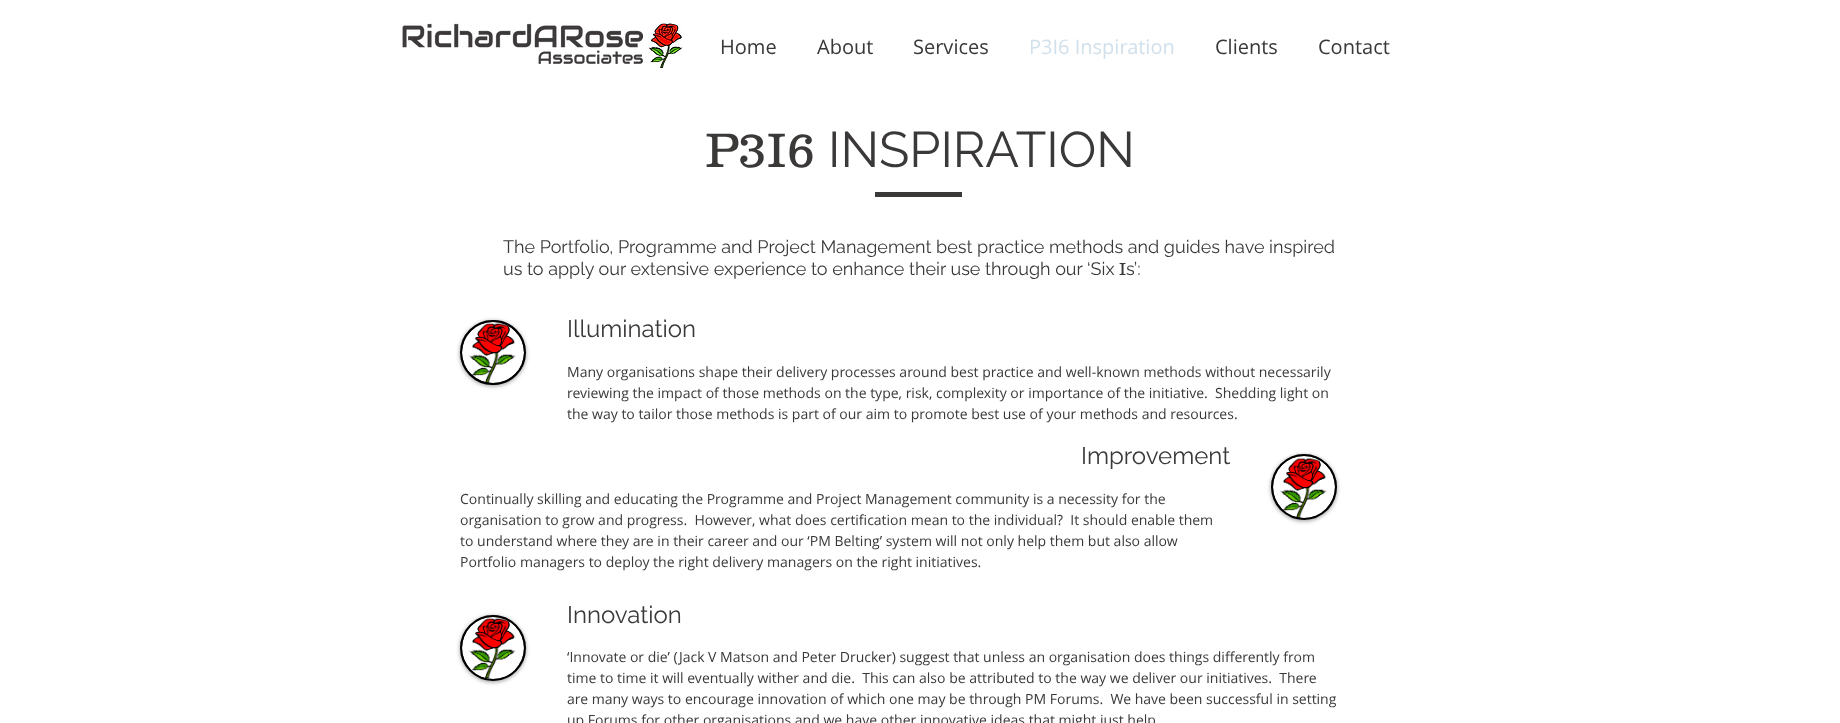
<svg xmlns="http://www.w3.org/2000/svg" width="1840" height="723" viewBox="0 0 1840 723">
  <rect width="100%" height="100%" fill="#fff"/>
  <image x="402" y="23" width="281" height="46" href="img/1.png"/>
  <path d="M875 192h87v5H875z" fill="#3b3838"/>
  <rect x="460" y="321" width="66" height="65" rx="32.5" fill="#00000066" filter="blur(2px)"/>
  <rect x="461" y="321" width="64" height="63" rx="31.5" fill="#000" stroke="#000" stroke-width="2"/>
  <image x="462" y="322" width="62" height="61" href="img/2.png"/>
  <rect x="1271" y="455" width="66" height="66" rx="33" fill="#00000066" filter="blur(2px)"/>
  <circle cx="1304" cy="487" r="32" fill="#000" stroke="#000" stroke-width="2"/>
  <image x="1273" y="456" width="62" height="62" href="img/3.png"/>
  <rect x="460" y="616" width="66" height="66" rx="33" fill="#00000066" filter="blur(2px)"/>
  <circle cx="493" cy="648" r="32" fill="#000" stroke="#000" stroke-width="2"/>
  <image x="462" y="617" width="62" height="62" href="img/4.png"/>
  <g font-family="Open Sans" font-size="20" fill="#3b3838">
    <text x="720" y="54">Home</text>
    <text x="817" y="54">About</text>
    <text x="913" y="54">Services</text>
  </g>
  <text x="1029" y="54" font-family="Open Sans" font-size="20" fill="#d1e0eb">P3I6 Inspiration</text>
  <g font-family="Open Sans" font-size="20" fill="#3b3838">
    <text x="1215" y="54">Clients</text>
    <text x="1318" y="54">Contact</text>
  </g>
  <text x="705" y="167" font-family="'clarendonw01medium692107'" font-size="50" font-weight="300" fill="#3b3838">P3I6</text>
  <text x="828" y="167" font-family="Raleway" font-size="50" fill="#3b3838">INSPIRATION</text>
  <g font-family="Raleway" font-size="18" fill="#3b3838">
    <text x="503" y="253">The Portfolio, Programme and Project Management best practice methods and guides have inspired</text>
    <text x="503" y="275">us to apply our extensive experience to enhance their use through our ‘Six</text>
  </g>
  <text x="1119" y="275" font-family="'clarendonw01medium692107'" font-size="18" font-weight="300" fill="#3b3838">I</text>
  <text x="1126" y="275" font-family="Raleway" font-size="18" fill="#3b3838">s’:</text>
  <text x="567" y="337" font-family="Raleway" font-size="24" fill="#3b3838">Illumination</text>
  <g font-family="Open Sans" font-size="14" fill="#3b3838">
    <text x="567" y="377">Many organisations shape their delivery processes around best practice and well-known methods without necessarily</text>
    <text x="567" y="398" xml:space="preserve">reviewing the impact of those methods on the type, risk, complexity or importance of the initiative.  Shedding light on</text>
    <text x="567" y="419">the way to tailor those methods is part of our aim to promote best use of your methods and resources.</text>
  </g>
  <text x="1081" y="464" font-family="Raleway" font-size="24" fill="#3b3838">Improvement</text>
  <g font-family="Open Sans" font-size="14" fill="#3b3838">
    <text x="460" y="504">Continually skilling and educating the Programme and Project Management community is a necessity for the</text>
    <text x="460" y="525" xml:space="preserve">organisation to grow and progress.  However, what does certification mean to the individual?  It should enable them</text>
    <text x="460" y="546">to understand where they are in their career and our ‘PM Belting’ system will not only help them but also allow</text>
    <text x="460" y="567">Portfolio managers to deploy the right delivery managers on the right initiatives.</text>
  </g>
  <text x="567" y="623" font-family="Raleway" font-size="24" fill="#3b3838">Innovation</text>
  <g font-family="Open Sans" font-size="14" fill="#3b3838">
    <text x="567" y="662">‘Innovate or die’ (Jack V Matson and Peter Drucker) suggest that unless an organisation does things differently from</text>
    <text x="567" y="683" xml:space="preserve">time to time it will eventually wither and die.  This can also be attributed to the way we deliver our initiatives.  There</text>
    <text x="567" y="704" xml:space="preserve">are many ways to encourage innovation of which one may be through PM Forums.  We have been successful in setting</text>
    <text x="567" y="725">up Forums for other organisations and we have other innovative ideas that might just help</text>
  </g>
</svg>
